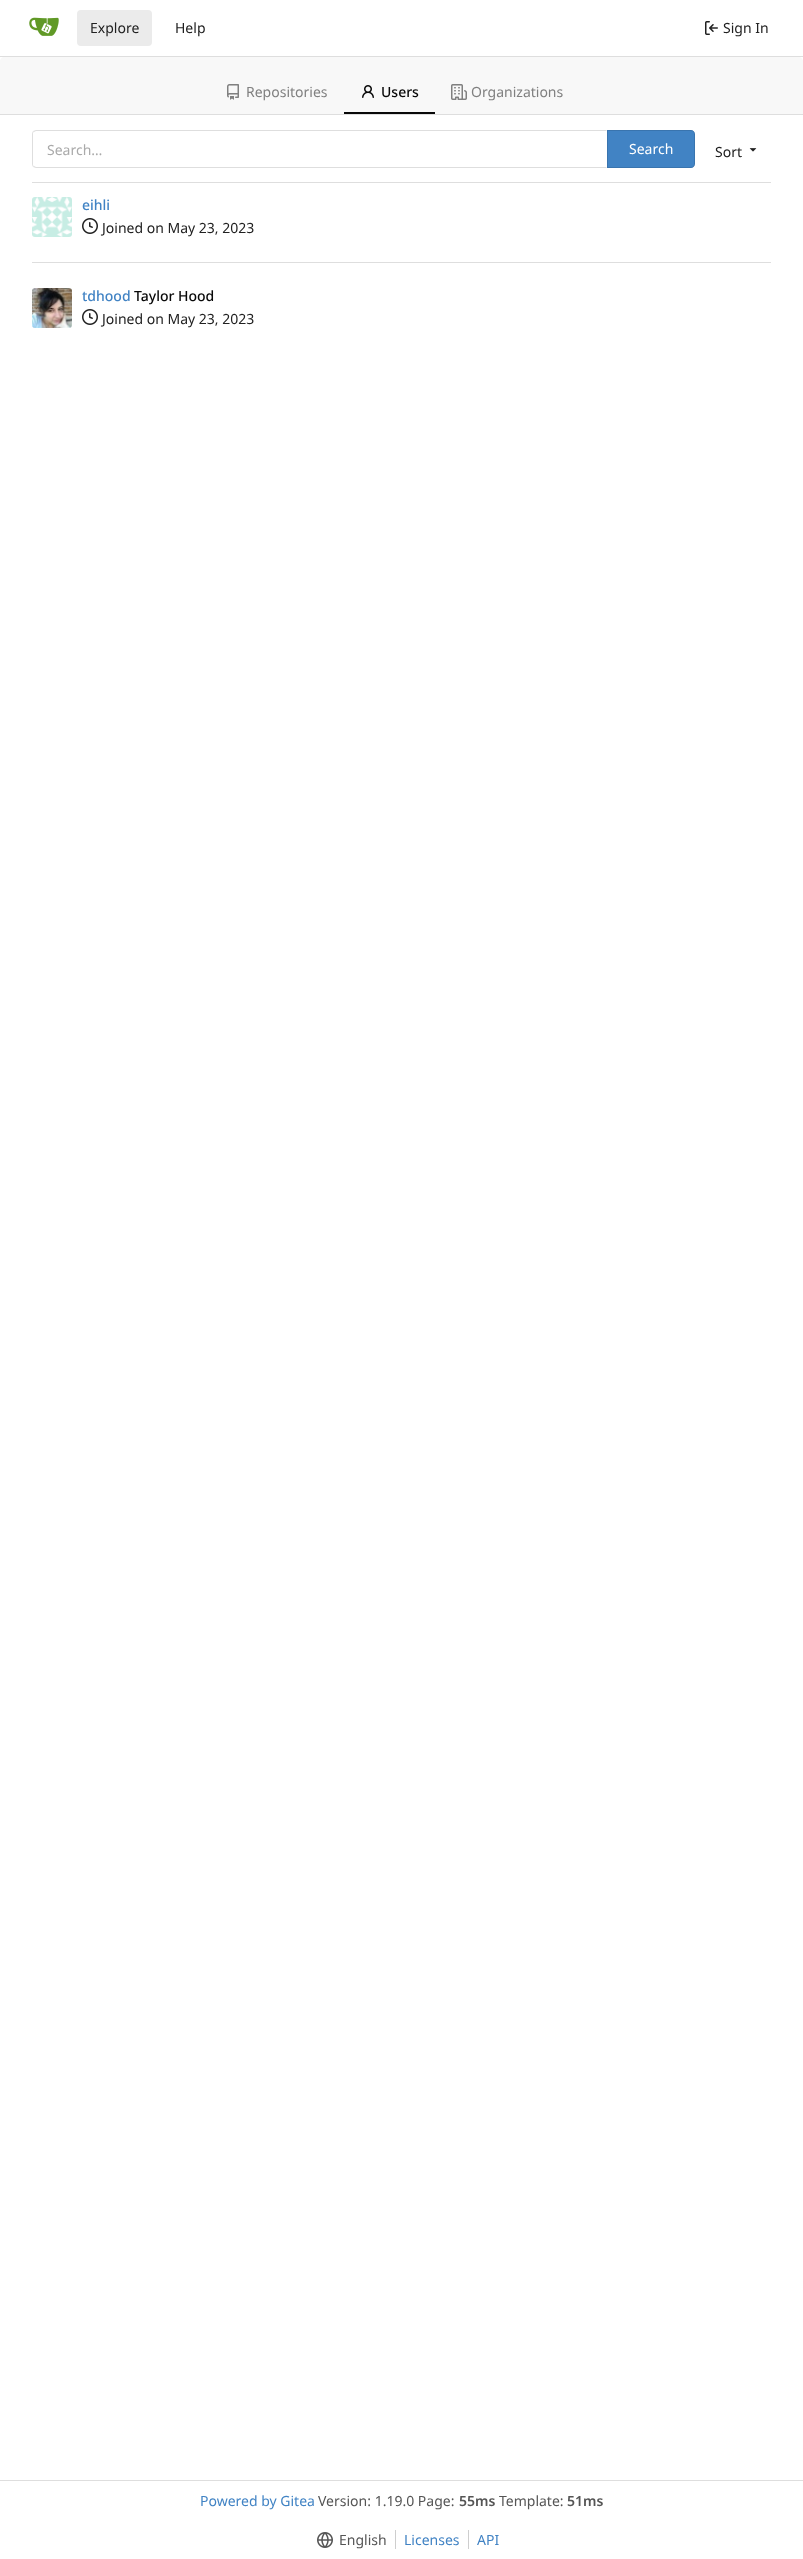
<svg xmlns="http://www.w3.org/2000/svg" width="803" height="2559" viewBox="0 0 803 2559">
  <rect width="100%" height="100%" fill="#fff"/>
  <path d="M0 56h803v1H0z" fill="#dedede"/>
  <image x="29" y="17" width="30" height="19" href="img/1.png"/>
  <rect x="77" y="10" width="75" height="36" rx="4" fill="#ebebeb"/>
  <image x="705" y="21" width="13" height="14" href="img/2.png"/>
  <path d="M4 57H799C801 57 803 59 803 61V115H0V61C0 59 2 57 4 57Z" fill="#f8f8f8"/>
  <path d="M0 114h803v1H0z" fill="#dedede"/>
  <image x="227" y="84" width="12" height="16" href="img/3.png"/>
  <path d="M344 112h91v2H344z" fill="#080808"/>
  <image x="362" y="85" width="12" height="13" href="img/4.png"/>
  <image x="451" y="84" width="16" height="16" href="img/5.png"/>
  <path d="M36 130L33 131L34 132L36 131H606L607 130Z" fill="#dedede"/>
  <path d="M607 168L606 167H36L34 166L33 167L36 168Z" fill="#dedede"/>
  <path d="M32 134V164C32 165 32.5 166 33 167L34 166C33 166 33 165 33 164V134C33 133 33 132 34 132L33 131C32.5 132 32 133 32 134Z" fill="#dedede"/>
  <path d="M607 130H691C693 130 695 132 695 134V164C695 166 693 168 691 168H607Z" fill="#4183c4"/>
  <path d="M607.5 130.5H691C693 130.5 694.5 132 694.5 134V164C694.5 166 693 167.5 691 167.5H607.5Z" fill="none" stroke="#0000001c"/>
  <image x="749" y="148" width="8" height="4" href="img/6.png"/>
  <path d="M32 182h739v1H32z" fill="#dedede"/>
  <image x="32" y="197" width="40" height="40" href="img/7.png"/>
  <image x="82" y="218" width="16" height="16" href="img/8.png"/>
  <path d="M32 262h739v1H32z" fill="#dedede"/>
  <image x="32" y="288" width="40" height="40" href="img/9.png"/>
  <image x="82" y="309" width="16" height="16" href="img/8.png"/>
  <path d="M0 2480h803v1H0z" fill="#dedede"/>
  <image x="317" y="2532" width="16" height="16" href="img/10.png"/>
  <path d="M395 2530h1v19H395z" fill="#cecece"/>
  <path d="M468 2530h1v19H468z" fill="#cecece"/>
  <g font-family="Noto Sans" font-size="14" fill="#212121">
    <text x="90" y="33">Explore</text>
    <text x="175" y="33">Help</text>
    <text x="723" y="33">Sign In</text>
  </g>
  <text x="246" y="97" font-family="Noto Sans" font-size="14" fill="#808080">Repositories</text>
  <text x="381" y="97" font-family="Noto Sans" font-size="14" font-weight="500" fill="#080808">Users</text>
  <text x="471" y="97" font-family="Noto Sans" font-size="14" fill="#808080">Organizations</text>
  <text x="47" y="155" font-family="Noto Sans" font-size="14" fill="#aaa">Search…</text>
  <text x="629" y="154" font-family="Noto Sans" font-size="14" fill="#fff">Search</text>
  <text x="715" y="157" font-family="Noto Sans" font-size="14" fill="#212121">Sort</text>
  <text x="82" y="210" font-family="Noto Sans" font-size="14" font-weight="500" fill="#4183c4">eihli</text>
  <text x="102" y="233" font-family="Noto Sans" font-size="14" fill="#212121">Joined on May 23, 2023</text>
  <text x="82" y="301" font-family="Noto Sans" font-size="14" font-weight="500" fill="#4183c4">tdhood</text>
  <text x="134" y="301" font-family="Noto Sans" font-size="14" font-weight="500" fill="#080808">Taylor Hood</text>
  <text x="102" y="324" font-family="Noto Sans" font-size="14" fill="#212121">Joined on May 23, 2023</text>
  <text x="200" y="2506" font-family="Noto Sans" font-size="14" fill="#4183c4">Powered by Gitea</text>
  <text x="318" y="2506" font-family="Noto Sans" font-size="14" fill="#555">Version: 1.19.0 Page:</text>
  <text x="459" y="2506" font-family="Noto Sans" font-size="14" font-weight="600" fill="#555">55ms</text>
  <text x="499" y="2506" font-family="Noto Sans" font-size="14" fill="#555">Template:</text>
  <text x="567" y="2506" font-family="Noto Sans" font-size="14" font-weight="600" fill="#555">51ms</text>
  <text x="339" y="2545" font-family="Noto Sans" font-size="14" fill="#555">English</text>
  <g font-family="Noto Sans" font-size="14" fill="#4183c4">
    <text x="404" y="2545">Licenses</text>
    <text x="477" y="2545">API</text>
  </g>
</svg>
